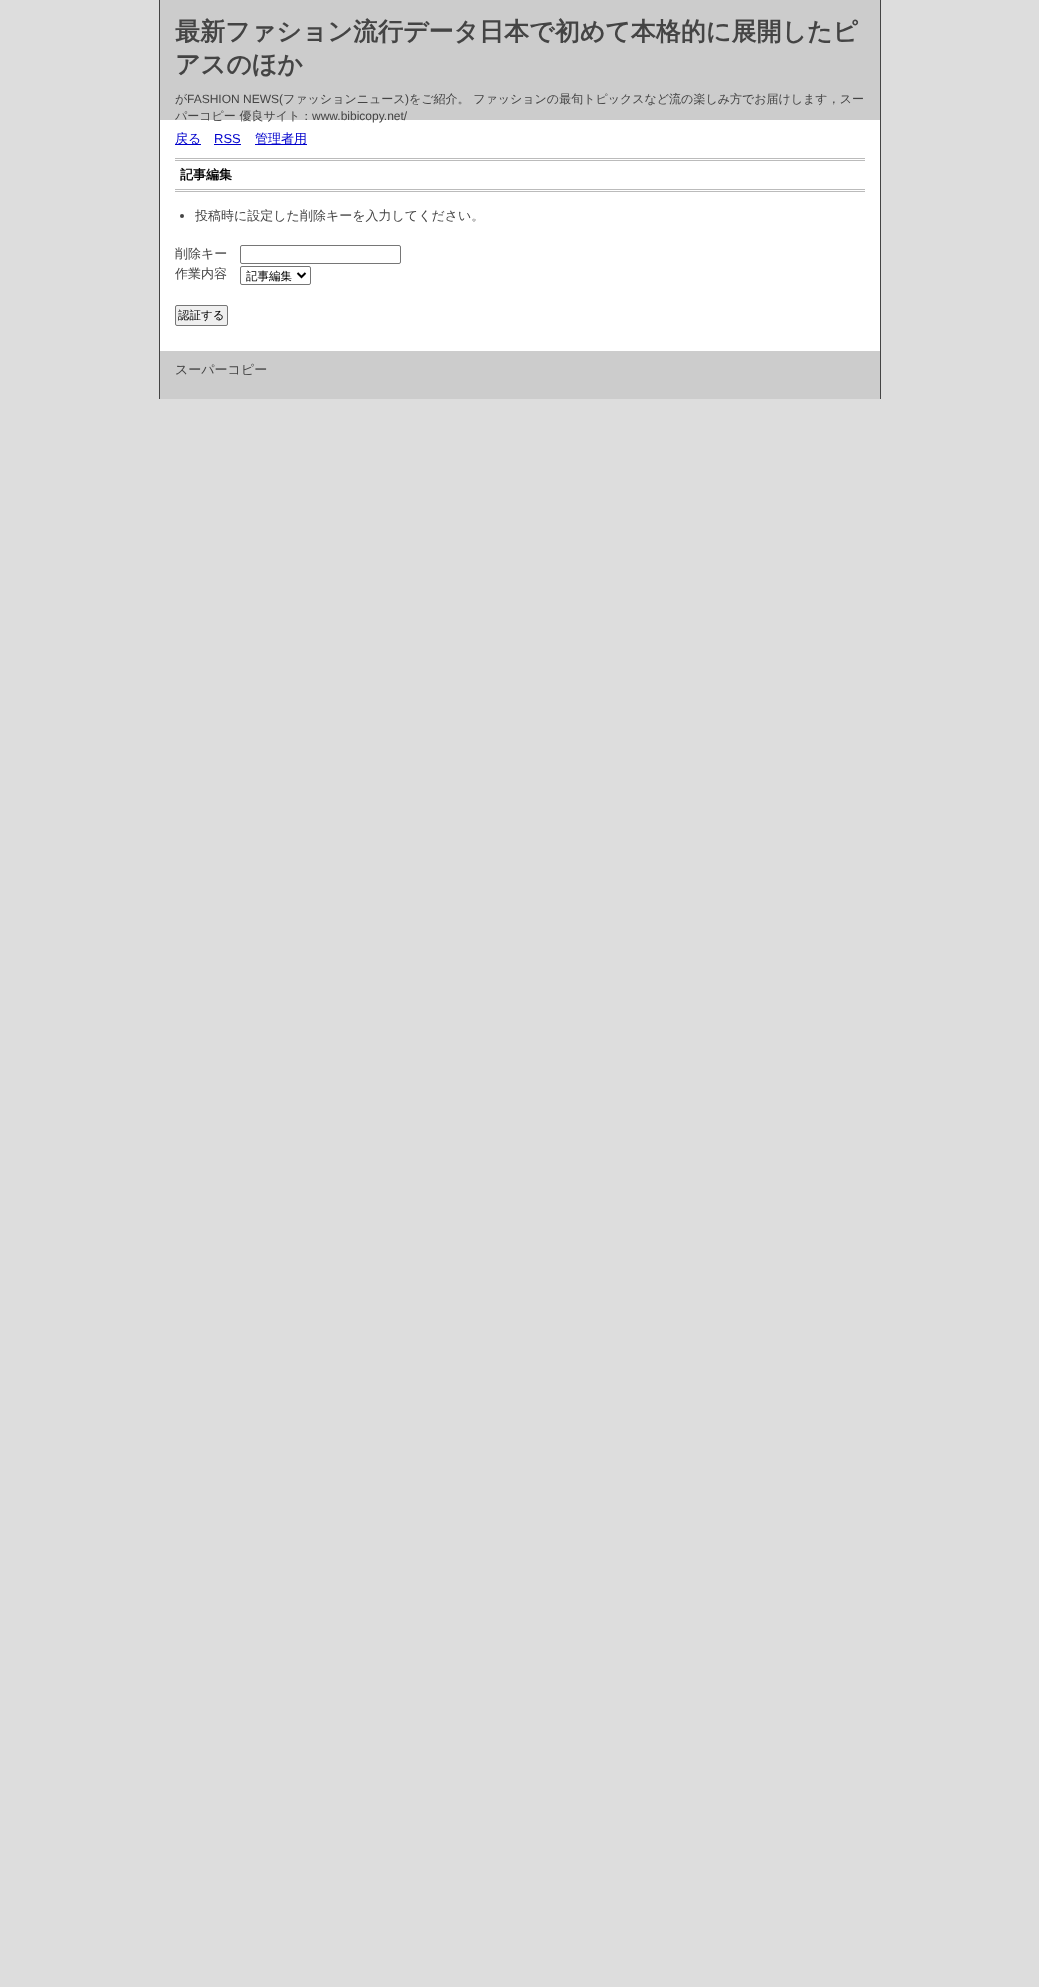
<svg xmlns="http://www.w3.org/2000/svg" width="1039" height="1987" viewBox="0 0 1039 1987">
  <defs>
    <clipPath id="clip1"><path d="M246 268h47v15H246z"/></clipPath>
  </defs>
  <rect width="100%" height="100%" fill="#ddd"/>
  <path d="M160 120h720v231H160z" fill="#fff"/>
  <path d="M880 0h1v399H880z" fill="#444"/>
  <path d="M159 0h1v399H159z" fill="#444"/>
  <path d="M160 0h720v120H160z" fill="#ccc"/>
  <path d="M175 144h26v1H175z" fill="#00c"/>
  <path d="M214 144h27v1H214z" fill="#00c"/>
  <path d="M255 144h52v1H255z" fill="#00c"/>
  <path d="M175 158h690v1H175z" fill="#bbb"/>
  <path d="M175 160h690v1H175z" fill="#bbb"/>
  <path d="M175 189h690v1H175z" fill="#bbb"/>
  <path d="M175 191h690v1H175z" fill="#bbb"/>
  <circle cx="182" cy="216" r="2" fill="#444"/>
  <rect x="240.5" y="245.5" width="160" height="18" rx="1.5" fill="none" stroke="#767676"/>
  <rect x="240.5" y="266.5" width="70" height="18" rx="1.5" fill="none" stroke="#767676"/>
  <path d="M297.5 273L301.5 277L305.5 273" fill="none" stroke="#000" stroke-width="2"/>
  <rect x="175.5" y="305.5" width="52" height="20" rx="1.5" fill="#efefef" stroke="#767676"/>
  <path d="M160 351h720v48H160z" fill="#ccc"/>
  <g font-family="WenQuanYi Zen Hei" font-size="25" font-weight="bold" fill="#444">
    <text x="175" y="40">最新ファション流行データ日本で初めて本格的に展開したピ</text>
    <text x="175" y="73">アスのほか</text>
  </g>
  <text x="175" y="103" font-family="WenQuanYi Zen Hei" font-size="12" font-weight="500" fill="#444">が</text>
  <text x="187" y="103" font-family="Liberation Sans" font-size="12" fill="#444">FASHION NEWS(</text>
  <text x="283" y="103" font-family="WenQuanYi Zen Hei" font-size="12" font-weight="500" fill="#444">ファッションニュース</text>
  <text x="405" y="103" font-family="Liberation Sans" font-size="12" fill="#444">)</text>
  <g font-family="WenQuanYi Zen Hei" font-size="12" font-weight="500" fill="#444">
    <text x="409" y="103">をご紹介。 ファッションの最旬トピックスなど流の楽しみ方でお届けします，スー</text>
    <text x="175" y="120">パーコピー 優良サイト：</text>
  </g>
  <text x="312" y="120" font-family="Liberation Sans" font-size="12" fill="#444">www.bibicopy.net/</text>
  <text x="175" y="143" font-family="WenQuanYi Zen Hei" font-size="13" font-weight="500" fill="#00c">戻る</text>
  <text x="214" y="143" font-family="Liberation Sans" font-size="13" fill="#00c">RSS</text>
  <text x="255" y="143" font-family="WenQuanYi Zen Hei" font-size="13" font-weight="500" fill="#00c">管理者用</text>
  <text x="180" y="179" font-family="WenQuanYi Zen Hei" font-size="13" font-weight="bold" fill="#000">記事編集</text>
  <g font-family="WenQuanYi Zen Hei" font-size="13" font-weight="500" fill="#444">
    <text x="195" y="220">投稿時に設定した削除キーを入力してください。</text>
    <text x="175" y="258">削除キー</text>
    <text x="175" y="278">作業内容</text>
  </g>
  <g clip-path="url(#clip1)">
    <text x="246" y="280" font-family="WenQuanYi Zen Hei" font-size="11.5" font-weight="500" fill="#000">記事編集</text>
  </g>
  <text x="178" y="319" font-family="WenQuanYi Zen Hei" font-size="11.5" font-weight="500" fill="#000">認証する</text>
  <text x="175" y="374" font-family="WenQuanYi Zen Hei" font-size="13" font-weight="500" fill="#444">スーパーコピー</text>
</svg>
